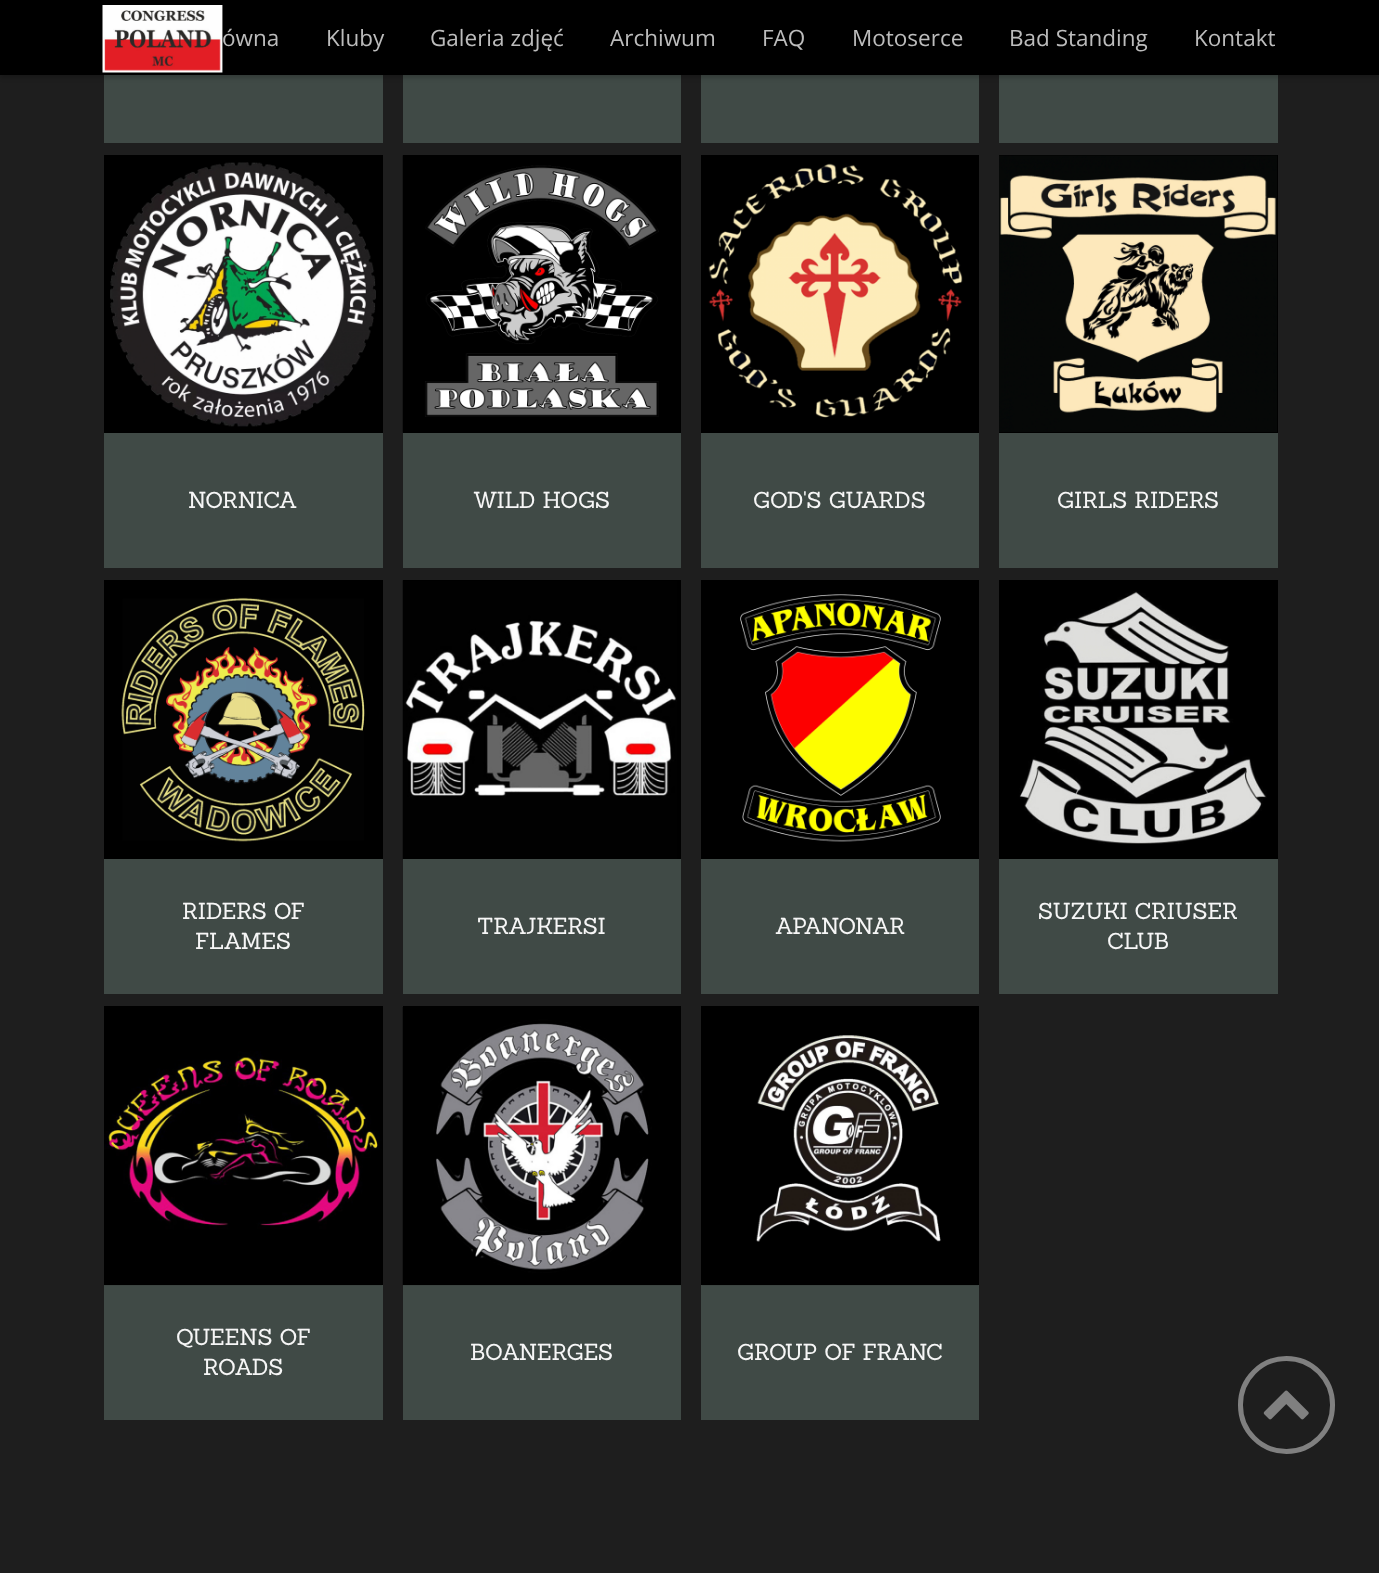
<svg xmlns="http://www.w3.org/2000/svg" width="1379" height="1573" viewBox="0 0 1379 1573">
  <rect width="100%" height="100%" fill="#1e1e1e"/>
  <path d="M104 75h279v68H104z" fill="#404a46"/>
  <path d="M403 75h278v68H403z" fill="#404a46"/>
  <path d="M701 75h278v68H701z" fill="#404a46"/>
  <path d="M999 75h279v68H999z" fill="#404a46"/>
  <path d="M0 3h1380v75H0z" fill="#00000033" filter="blur(2px)"/>
  <path d="M0 0h1379v75H0z" fill="#000"/>
  <image x="102" y="5" width="121" height="68" href="img/1.png"/>
  <path d="M104 155h279v278H104z" fill="#000"/>
  <image x="110" y="162" width="266" height="265" href="img/2.png"/>
  <path d="M104 433h279v135H104z" fill="#404a46"/>
  <path d="M403 155h278v278H403z" fill="#000"/>
  <image x="402" y="155" width="257" height="278" href="img/3.png"/>
  <path d="M403 433h278v135H403z" fill="#404a46"/>
  <path d="M701 155h278v278H701z" fill="#000"/>
  <image x="708" y="163" width="255" height="255" href="img/4.png"/>
  <path d="M701 433h278v135H701z" fill="#404a46"/>
  <path d="M999 155h279v278H999z" fill="#000"/>
  <image x="999" y="155" width="278" height="277" href="img/5.png"/>
  <path d="M999 433h279v135H999z" fill="#404a46"/>
  <path d="M104 580h279v279H104z" fill="#000"/>
  <image x="121" y="597" width="244" height="245" href="img/6.png"/>
  <path d="M104 859h279v135H104z" fill="#404a46"/>
  <path d="M403 580h278v279H403z" fill="#000"/>
  <image x="402" y="580" width="275" height="279" href="img/7.png"/>
  <path d="M403 859h278v135H403z" fill="#404a46"/>
  <path d="M701 580h278v279H701z" fill="#000"/>
  <image x="740" y="594" width="201" height="248" href="img/8.png"/>
  <path d="M701 859h278v135H701z" fill="#404a46"/>
  <path d="M999 580h279v279H999z" fill="#000"/>
  <image x="1019" y="591" width="248" height="253" href="img/9.png"/>
  <path d="M999 859h279v135H999z" fill="#404a46"/>
  <path d="M104 1006h279v279H104z" fill="#000"/>
  <path d="M104 1285h279v135H104z" fill="#404a46"/>
  <image x="104" y="1051" width="278" height="235" href="img/10.png"/>
  <path d="M403 1006h278v1H403z" fill="#000"/>
  <path d="M403 1285h278v135H403z" fill="#404a46"/>
  <image x="402" y="1007" width="279" height="279" href="img/11.png"/>
  <path d="M701 1006h278v279H701z" fill="#000"/>
  <path d="M701 1285h278v135H701z" fill="#404a46"/>
  <image x="702" y="1035" width="276" height="251" href="img/12.png"/>
  <rect x="1240.5" y="1358.5" width="92" height="93" rx="46" fill="none" stroke="#808080" stroke-width="5"/>
  <image x="1263" y="1390" width="46" height="30" href="img/13.png"/>
  <g font-family="Open Sans" font-size="22.5" fill="#bcbcbc">
    <text x="222" y="46">ówna</text>
    <text x="326" y="46">Kluby</text>
    <text x="430" y="46">Galeria zdjęć</text>
    <text x="610" y="46">Archiwum</text>
    <text x="762" y="46">FAQ</text>
    <text x="852" y="46">Motoserce</text>
    <text x="1009" y="46">Bad Standing</text>
    <text x="1194" y="46">Kontakt</text>
  </g>
  <g font-family="Sanchez" font-size="22.5" fill="#f6f6f6">
    <text x="188" y="508">NORNICA</text>
    <text x="473" y="508">WILD HOGS</text>
    <text x="753" y="508">GOD'S GUARDS</text>
    <text x="1057" y="508">GIRLS RIDERS</text>
    <text x="182" y="919">RIDERS OF</text>
    <text x="195" y="949">FLAMES</text>
    <text x="477" y="934">TRAJKERSI</text>
    <text x="775" y="934">APANONAR</text>
    <text x="1038" y="919">SUZUKI CRIUSER</text>
    <text x="1107" y="949">CLUB</text>
    <text x="176" y="1345">QUEENS OF</text>
    <text x="203" y="1375">ROADS</text>
    <text x="470" y="1360">BOANERGES</text>
    <text x="737" y="1360">GROUP OF FRANC</text>
  </g>
</svg>
